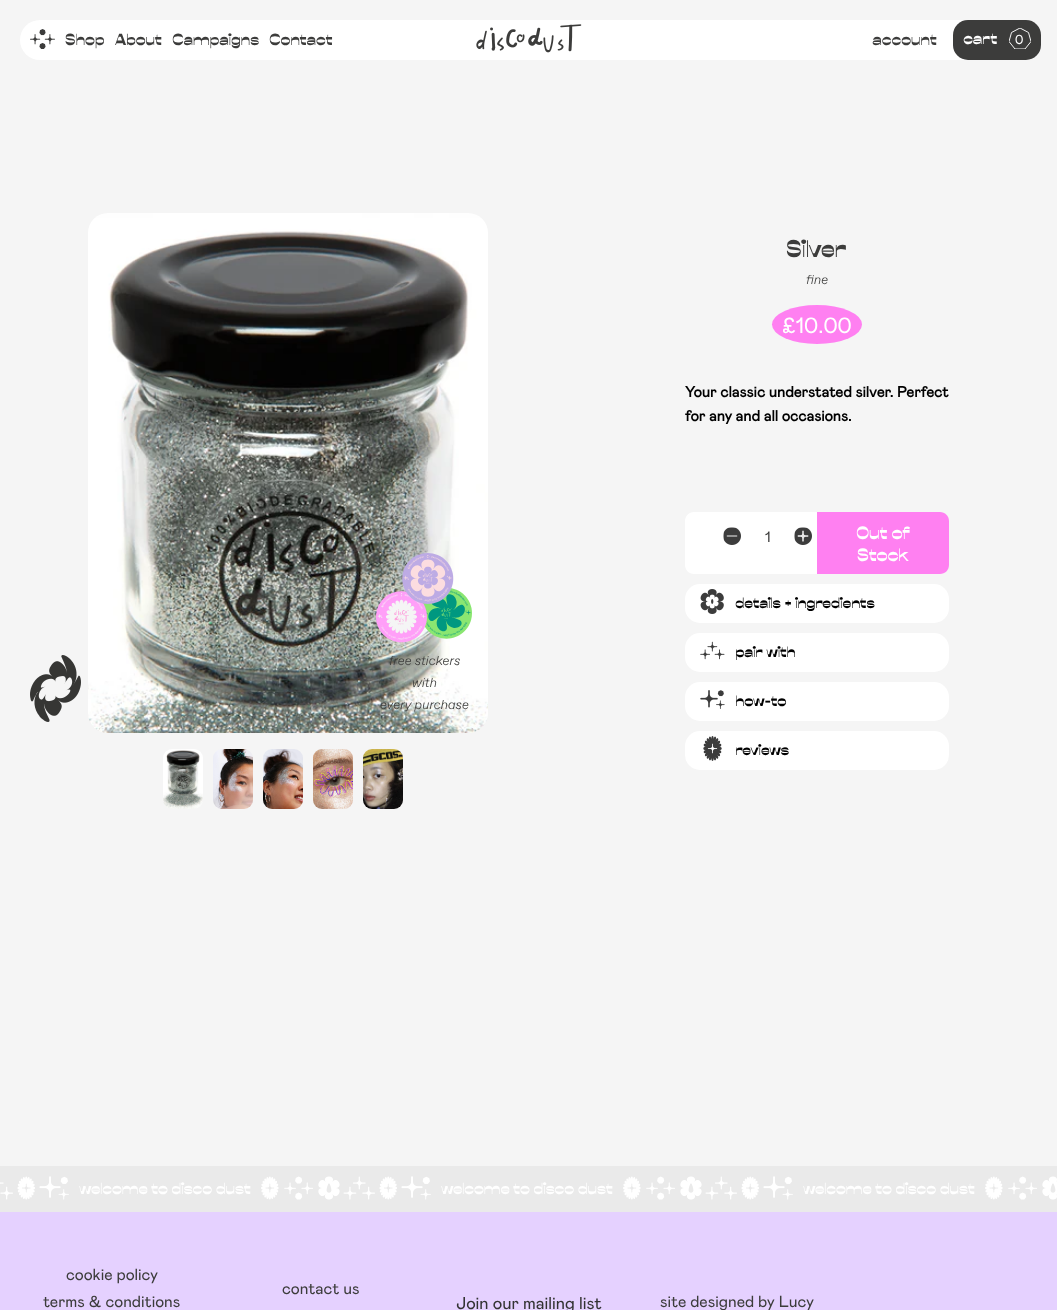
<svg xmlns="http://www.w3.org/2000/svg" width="1057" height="1310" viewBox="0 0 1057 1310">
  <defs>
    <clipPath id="clip1"><path d="M1009 28h22v21H1009z"/></clipPath>
  </defs>
  <rect width="100%" height="100%" fill="#f5f5f5"/>
  <rect x="20" y="20" width="1017" height="40" rx="20" fill="#fff"/>
  <image x="30" y="29" width="25" height="20" href="img/1.png"/>
  <image x="476" y="24" width="106" height="29" href="img/2.png"/>
  <rect x="953" y="20" width="88" height="40" rx="15" fill="#3c3c3b"/>
  <image x="30" y="655" width="51" height="67" href="img/3.png"/>
  <image x="88" y="213" width="400" height="520" href="img/4.png"/>
  <image x="376" y="553" width="96" height="90" href="img/5.png"/>
  <image x="163" y="749" width="40" height="60" href="img/6.png"/>
  <image x="213" y="749" width="40" height="60" href="img/7.png"/>
  <image x="263" y="749" width="40" height="60" href="img/8.png"/>
  <image x="313" y="749" width="40" height="60" href="img/9.png"/>
  <image x="363" y="749" width="40" height="60" href="img/10.png"/>
  <ellipse cx="817" cy="324.5" rx="45" ry="19.5" fill="#ff80f1"/>
  <path d="M694 512H817V574H694C689 574 685 570 685 565V521C685 516 689 512 694 512Z" fill="#fff"/>
  <image x="723" y="527" width="18" height="18" href="img/11.png"/>
  <image x="794" y="527" width="18" height="18" href="img/12.png"/>
  <path d="M817 512H940C945 512 949 516 949 521V565C949 570 945 574 940 574H817Z" fill="#ff80f1"/>
  <rect x="685" y="584" width="264" height="39" rx="15" fill="#fff"/>
  <image x="700" y="589" width="24" height="25" href="img/13.png"/>
  <rect x="685" y="633" width="264" height="39" rx="15" fill="#fff"/>
  <image x="700" y="641" width="25" height="19" href="img/14.png"/>
  <rect x="685" y="682" width="264" height="39" rx="15" fill="#fff"/>
  <image x="700" y="690" width="25" height="19" href="img/15.png"/>
  <rect x="685" y="731" width="264" height="39" rx="15" fill="#fff"/>
  <image x="703" y="736" width="19" height="25" href="img/16.png"/>
  <path d="M0 1166h1057v46H0z" fill="#eaeaea"/>
  <image x="0" y="1176" width="69" height="24" href="img/17.png"/>
  <image x="261" y="1176" width="170" height="24" href="img/18.png"/>
  <image x="623" y="1176" width="170" height="24" href="img/18.png"/>
  <image x="985" y="1176" width="72" height="24" href="img/19.png"/>
  <path d="M0 1212h1057v98H0z" fill="#e5d1ff"/>
  <g font-family="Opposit" font-size="16" font-weight="900" fill="#3c3c3b">
    <text x="65" y="45">Shop</text>
    <text x="115" y="45">About</text>
    <text x="172" y="45">Campaigns</text>
    <text x="269" y="45">Contact</text>
    <text x="872" y="45">account</text>
  </g>
  <text x="963" y="44" font-family="Opposit" font-size="16" font-weight="900" fill="#fff">cart</text>
  <text x="1015" y="44" font-family="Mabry" font-size="13" fill="#fff">0</text>
  <g clip-path="url(#clip1)">
    <path d="M1020 28L1011.5 32.5L1009 41.5L1015 49H1025L1031 41.5L1028.5 32.5Z" fill="none" stroke="#f5f5f5"/>
  </g>
  <g font-family="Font" font-size="13" font-weight="300" font-style="italic" fill="#3c3c3b">
    <text x="389" y="665">free stickers</text>
    <text x="412" y="687">with</text>
    <text x="380" y="709">every purchase</text>
  </g>
  <text x="786" y="257" font-family="Opposit" font-size="24" font-weight="900" fill="#3c3c3b">Silver</text>
  <text x="806" y="284" font-family="Font" font-size="13" font-weight="300" font-style="italic" fill="#3c3c3b">fine</text>
  <text x="782" y="333" font-family="Mabry" font-size="22" fill="#fff">£10.00</text>
  <g font-family="Mabry" font-size="15" font-weight="bold" fill="#000">
    <text x="685" y="397">Your classic understated silver. Perfect</text>
    <text x="685" y="421">for any and all occasions.</text>
  </g>
  <text x="765" y="542" font-family="Mabry" font-size="15" fill="#3c3c3b">1</text>
  <g font-family="Opposit" font-size="18" font-weight="900" fill="#fff">
    <text x="856" y="539">Out of</text>
    <text x="857" y="561">Stock</text>
  </g>
  <g font-family="Opposit" font-size="15" font-weight="900" fill="#000">
    <text x="735" y="608">details + ingredients</text>
    <text x="735" y="657">pair with</text>
    <text x="735" y="706">how-to</text>
    <text x="735" y="755">reviews</text>
  </g>
  <g font-family="Opposit" font-size="16" font-weight="900" fill="#fff">
    <text x="79" y="1194">welcome to disco dust</text>
    <text x="441" y="1194">welcome to disco dust</text>
    <text x="803" y="1194">welcome to disco dust</text>
  </g>
  <g font-family="Mabry" font-size="16" fill="#3c3c3b">
    <text x="66" y="1280">cookie policy</text>
    <text x="43" y="1307">terms &amp; conditions</text>
    <text x="282" y="1294">contact us</text>
  </g>
  <text x="456" y="1309" font-family="Mabry" font-size="17" fill="#333">Join our mailing list</text>
  <text x="660" y="1307" font-family="Mabry" font-size="16" fill="#3c3c3b">site designed by Lucy</text>
</svg>
